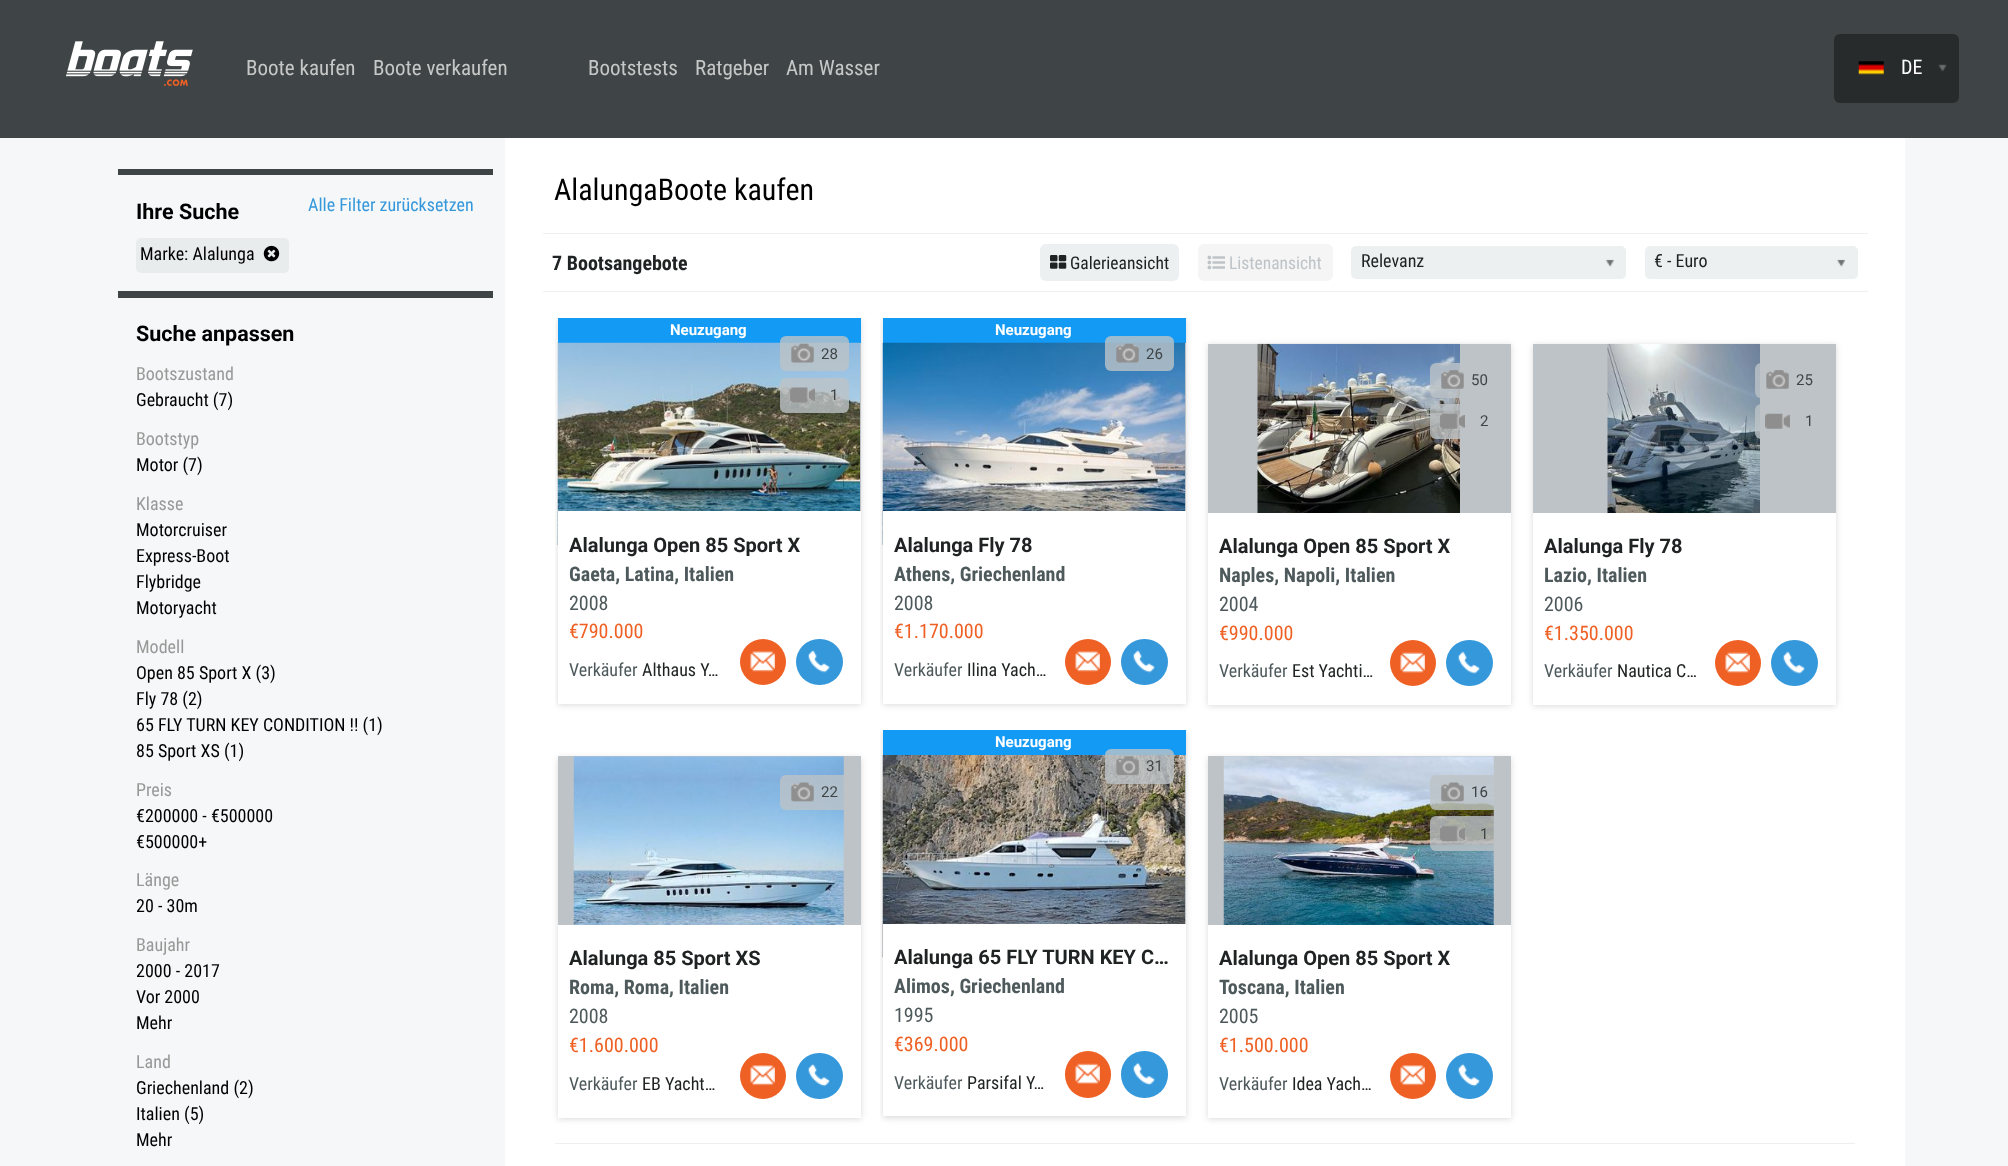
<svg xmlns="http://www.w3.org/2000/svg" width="2008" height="1166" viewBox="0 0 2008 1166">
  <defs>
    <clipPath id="clip1"><path d="M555 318h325v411H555z"/></clipPath>
    <clipPath id="clip2"><path d="M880 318h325v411H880z"/></clipPath>
    <clipPath id="clip3"><path d="M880 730h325v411H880z"/></clipPath>
  </defs>
  <rect width="100%" height="100%" fill="#f5f7f8"/>
  <path d="M0 0h2008v138H0z" fill="#3f4546"/>
  <image x="66" y="41" width="127" height="45" href="img/1.png"/>
  <rect x="1834" y="34" width="125" height="69" rx="6" fill="#272b2b"/>
  <image x="1858" y="61" width="26" height="14" href="img/2.png"/>
  <image x="1938" y="64" width="9" height="8" href="img/3.png"/>
  <path d="M118 169h375v6H118z" fill="#3f4546"/>
  <rect x="136" y="238" width="153" height="35" rx="5" fill="#e9eced"/>
  <image x="263" y="245" width="17" height="17" href="img/4.png"/>
  <path d="M118 291h375v7H118z" fill="#3f4546"/>
  <path d="M505 138h1400v1028H505z" fill="#fff"/>
  <path d="M543 233h1325v1H543z" fill="#ecf0f1"/>
  <path d="M543 291h1325v1H543z" fill="#ecf0f1"/>
  <rect x="1040" y="244" width="139" height="37" rx="6" fill="#ecf0f1"/>
  <image x="1050" y="255" width="17" height="14" href="img/5.png"/>
  <rect x="1198" y="244" width="135" height="37" rx="6" fill="#f5f5f5"/>
  <image x="1207" y="255" width="18" height="15" href="img/6.png"/>
  <rect x="1351" y="246" width="275" height="33" rx="5" fill="#ecf0f1"/>
  <image x="1606" y="259" width="8" height="8" href="img/7.png"/>
  <rect x="1645" y="246" width="213" height="33" rx="5" fill="#ecf0f1"/>
  <image x="1837" y="259" width="8" height="8" href="img/8.png"/>
  <g clip-path="url(#clip1)">
    <path d="M558 319h303v386H558z" fill="#00000026" filter="blur(3px)"/>
  </g>
  <path d="M558 318h303v25H558z" fill="#139af5"/>
  <path d="M860 343h1v168H860z" fill="#bdc3c7"/>
  <image x="557" y="342" width="303" height="203" href="img/9.png"/>
  <rect x="780" y="336" width="69" height="35" rx="6" fill="#bdc3c7cc"/>
  <image x="791" y="343" width="23" height="20" href="img/10.png"/>
  <rect x="780" y="378" width="69" height="35" rx="6" fill="#bdc3c7cc"/>
  <image x="790" y="387" width="25" height="16" href="img/11.png"/>
  <path d="M558 511h303v193H558z" fill="#fff"/>
  <circle cx="763" cy="662" r="23" fill="#ef6024"/>
  <image x="750" y="651" width="25" height="21" href="img/12.png"/>
  <rect x="796" y="639" width="47" height="46" rx="23" fill="#3598db"/>
  <image x="808" y="650" width="22" height="23" href="img/13.png"/>
  <g clip-path="url(#clip2)">
    <path d="M883 319h303v386H883z" fill="#00000026" filter="blur(3px)"/>
  </g>
  <path d="M883 318h303v25H883z" fill="#139af5"/>
  <path d="M1185 343h1v168H1185z" fill="#bdc3c7"/>
  <image x="882" y="342" width="303" height="203" href="img/14.png"/>
  <rect x="1105" y="336" width="69" height="35" rx="6" fill="#bdc3c7cc"/>
  <image x="1116" y="343" width="23" height="20" href="img/15.png"/>
  <path d="M883 511h303v193H883z" fill="#fff"/>
  <circle cx="1088" cy="662" r="23" fill="#ef6024"/>
  <image x="1075" y="651" width="25" height="21" href="img/16.png"/>
  <rect x="1121" y="639" width="47" height="46" rx="23" fill="#3598db"/>
  <image x="1133" y="650" width="22" height="23" href="img/13.png"/>
  <path d="M1208 345h303v361H1208z" fill="#00000026" filter="blur(3px)"/>
  <path d="M1208 344h303v169H1208z" fill="#bdc3c7"/>
  <image x="1257" y="343" width="203" height="170" href="img/17.png"/>
  <rect x="1430" y="363" width="69" height="35" rx="6" fill="#bdc3c7cc"/>
  <image x="1441" y="370" width="23" height="19" href="img/18.png"/>
  <rect x="1430" y="404" width="69" height="35" rx="6" fill="#bdc3c7cc"/>
  <image x="1440" y="413" width="25" height="16" href="img/19.png"/>
  <path d="M1208 513h303v192H1208z" fill="#fff"/>
  <circle cx="1413" cy="663" r="23" fill="#ef6024"/>
  <image x="1400" y="652" width="25" height="21" href="img/20.png"/>
  <rect x="1446" y="640" width="47" height="46" rx="23" fill="#3598db"/>
  <image x="1458" y="651" width="22" height="23" href="img/21.png"/>
  <path d="M1533 345h303v361H1533z" fill="#00000026" filter="blur(3px)"/>
  <path d="M1533 344h303v169H1533z" fill="#bdc3c7"/>
  <image x="1607" y="343" width="153" height="170" href="img/22.png"/>
  <rect x="1755" y="363" width="69" height="35" rx="6" fill="#bdc3c7cc"/>
  <image x="1766" y="370" width="23" height="19" href="img/23.png"/>
  <rect x="1755" y="404" width="69" height="35" rx="6" fill="#bdc3c7cc"/>
  <image x="1765" y="413" width="25" height="16" href="img/24.png"/>
  <path d="M1533 513h303v192H1533z" fill="#fff"/>
  <circle cx="1738" cy="663" r="23" fill="#ef6024"/>
  <image x="1725" y="652" width="25" height="21" href="img/25.png"/>
  <rect x="1771" y="640" width="47" height="46" rx="23" fill="#3598db"/>
  <image x="1783" y="651" width="22" height="23" href="img/21.png"/>
  <path d="M558 758h303v361H558z" fill="#00000026" filter="blur(3px)"/>
  <path d="M558 756h303v169H558z" fill="#bdc3c7"/>
  <image x="573" y="756" width="271" height="169" href="img/26.png"/>
  <rect x="780" y="775" width="69" height="35" rx="6" fill="#bdc3c7cc"/>
  <image x="791" y="782" width="23" height="20" href="img/27.png"/>
  <path d="M558 925h303v193H558z" fill="#fff"/>
  <circle cx="763" cy="1076" r="23" fill="#ef6024"/>
  <image x="750" y="1065" width="25" height="21" href="img/28.png"/>
  <rect x="796" y="1053" width="47" height="46" rx="23" fill="#3598db"/>
  <image x="808" y="1063" width="22" height="24" href="img/29.png"/>
  <g clip-path="url(#clip3)">
    <path d="M883 731h303v387H883z" fill="#00000026" filter="blur(3px)"/>
  </g>
  <path d="M883 730h303v25H883z" fill="#139af5"/>
  <path d="M1185 755h1v169H1185z" fill="#bdc3c7"/>
  <image x="882" y="755" width="303" height="203" href="img/30.png"/>
  <rect x="1105" y="749" width="69" height="35" rx="6" fill="#bdc3c7cc"/>
  <image x="1116" y="756" width="23" height="20" href="img/31.png"/>
  <path d="M883 924h303v192H883z" fill="#fff"/>
  <rect x="1065" y="1051" width="46" height="47" rx="23" fill="#ef6024"/>
  <image x="1075" y="1063" width="25" height="21" href="img/32.png"/>
  <rect x="1121" y="1051" width="47" height="47" rx="23" fill="#3598db"/>
  <image x="1133" y="1062" width="23" height="24" href="img/33.png"/>
  <path d="M1208 758h303v361H1208z" fill="#00000026" filter="blur(3px)"/>
  <path d="M1208 756h303v169H1208z" fill="#bdc3c7"/>
  <image x="1223" y="756" width="271" height="169" href="img/34.png"/>
  <rect x="1430" y="775" width="69" height="35" rx="6" fill="#bdc3c7cc"/>
  <image x="1441" y="782" width="23" height="20" href="img/35.png"/>
  <rect x="1430" y="816" width="69" height="35" rx="6" fill="#bdc3c7cc"/>
  <image x="1440" y="826" width="25" height="16" href="img/36.png"/>
  <path d="M1208 925h303v193H1208z" fill="#fff"/>
  <circle cx="1413" cy="1076" r="23" fill="#ef6024"/>
  <image x="1400" y="1065" width="25" height="21" href="img/37.png"/>
  <rect x="1446" y="1053" width="47" height="46" rx="23" fill="#3598db"/>
  <image x="1458" y="1063" width="22" height="24" href="img/29.png"/>
  <path d="M555 1143h1300v1H555z" fill="#ecf0f1"/>
  <g font-family="Roboto Condensed" font-size="21" fill="#c6c8c8">
    <text x="246" y="75">Boote kaufen</text>
    <text x="373" y="75">Boote verkaufen</text>
    <text x="588" y="75">Bootstests</text>
    <text x="695" y="75">Ratgeber</text>
    <text x="786" y="75">Am Wasser</text>
  </g>
  <text x="1901" y="74" font-family="Roboto Condensed" font-size="20" fill="#fff">DE</text>
  <text x="136" y="219" font-family="Roboto" font-size="21.5" font-weight="bold" fill="#000">Ihre Suche</text>
  <text x="308" y="211" font-family="Roboto Condensed" font-size="18" fill="#3598db">Alle Filter zurücksetzen</text>
  <text x="140" y="260" font-family="Roboto Condensed" font-size="18" fill="#000">Marke: Alalunga</text>
  <text x="136" y="341" font-family="Roboto" font-size="21.5" font-weight="bold" fill="#000">Suche anpassen</text>
  <text x="136" y="380" font-family="Roboto Condensed" font-size="18" fill="#979997">Bootszustand</text>
  <text x="136" y="406" font-family="Roboto Condensed" font-size="18" fill="#000">Gebraucht (7)</text>
  <text x="136" y="445" font-family="Roboto Condensed" font-size="18" fill="#979997">Bootstyp</text>
  <text x="136" y="471" font-family="Roboto Condensed" font-size="18" fill="#000">Motor (7)</text>
  <text x="136" y="510" font-family="Roboto Condensed" font-size="18" fill="#979997">Klasse</text>
  <g font-family="Roboto Condensed" font-size="18" fill="#000">
    <text x="136" y="536">Motorcruiser</text>
    <text x="136" y="562">Express-Boot</text>
    <text x="136" y="588">Flybridge</text>
    <text x="136" y="614">Motoryacht</text>
  </g>
  <text x="136" y="653" font-family="Roboto Condensed" font-size="18" fill="#979997">Modell</text>
  <g font-family="Roboto Condensed" font-size="18" fill="#000">
    <text x="136" y="679">Open 85 Sport X (3)</text>
    <text x="136" y="705">Fly 78 (2)</text>
    <text x="136" y="731">65 FLY TURN KEY CONDITION !! (1)</text>
    <text x="136" y="757">85 Sport XS (1)</text>
  </g>
  <text x="136" y="796" font-family="Roboto Condensed" font-size="18" fill="#979997">Preis</text>
  <g font-family="Roboto Condensed" font-size="18" fill="#000">
    <text x="136" y="822">€200000 - €500000</text>
    <text x="136" y="848">€500000+</text>
  </g>
  <text x="136" y="886" font-family="Roboto Condensed" font-size="18" fill="#979997">Länge</text>
  <text x="136" y="912" font-family="Roboto Condensed" font-size="18" fill="#000">20 - 30m</text>
  <text x="136" y="951" font-family="Roboto Condensed" font-size="18" fill="#979997">Baujahr</text>
  <g font-family="Roboto Condensed" font-size="18" fill="#000">
    <text x="136" y="977">2000 - 2017</text>
    <text x="136" y="1003">Vor 2000</text>
    <text x="136" y="1029">Mehr</text>
  </g>
  <text x="136" y="1068" font-family="Roboto Condensed" font-size="18" fill="#979997">Land</text>
  <g font-family="Roboto Condensed" font-size="18" fill="#000">
    <text x="136" y="1094">Griechenland (2)</text>
    <text x="136" y="1120">Italien (5)</text>
    <text x="136" y="1146">Mehr</text>
  </g>
  <text x="554" y="200" font-family="Roboto Condensed" font-size="30" fill="#000">AlalungaBoote kaufen</text>
  <text x="552" y="270" font-family="Roboto Condensed" font-size="20" font-weight="bold" fill="#202323">7 Bootsangebote</text>
  <text x="1070" y="269" font-family="Roboto Condensed" font-size="17.5" fill="#202323">Galerieansicht</text>
  <text x="1229" y="269" font-family="Roboto Condensed" font-size="17.5" fill="#bdc3c7">Listenansicht</text>
  <g font-family="Roboto Condensed" font-size="18" fill="#202323">
    <text x="1361" y="267">Relevanz</text>
    <text x="1654" y="267">€ - Euro</text>
  </g>
  <text x="670" y="335" font-family="Roboto" font-size="15" font-weight="bold" fill="#fff">Neuzugang</text>
  <g font-family="Roboto" font-size="15" fill="#3f4546">
    <text x="821" y="359">28</text>
    <text x="830" y="400">1</text>
  </g>
  <text x="569" y="552" font-family="Roboto" font-size="20" font-weight="bold" fill="#202323">Alalunga Open 85 Sport X</text>
  <text x="569" y="581" font-family="Roboto Condensed" font-size="20" font-weight="bold" fill="#4e595c">Gaeta, Latina, Italien</text>
  <text x="569" y="610" font-family="Roboto Condensed" font-size="20" fill="#4e595c">2008</text>
  <text x="569" y="638" font-family="Roboto Condensed" font-size="20" fill="#ef6024">€790.000</text>
  <text x="569" y="676" font-family="Roboto Condensed" font-size="18" fill="#4e595c">Verkäufer</text>
  <text x="642" y="676" font-family="Roboto Condensed" font-size="18" fill="#202323">Althaus Y…</text>
  <text x="995" y="335" font-family="Roboto" font-size="15" font-weight="bold" fill="#fff">Neuzugang</text>
  <text x="1146" y="359" font-family="Roboto" font-size="15" fill="#3f4546">26</text>
  <text x="894" y="552" font-family="Roboto" font-size="20" font-weight="bold" fill="#202323">Alalunga Fly 78</text>
  <text x="894" y="581" font-family="Roboto Condensed" font-size="20" font-weight="bold" fill="#4e595c">Athens, Griechenland</text>
  <text x="894" y="610" font-family="Roboto Condensed" font-size="20" fill="#4e595c">2008</text>
  <text x="894" y="638" font-family="Roboto Condensed" font-size="20" fill="#ef6024">€1.170.000</text>
  <text x="894" y="676" font-family="Roboto Condensed" font-size="18" fill="#4e595c">Verkäufer</text>
  <text x="967" y="676" font-family="Roboto Condensed" font-size="18" fill="#202323">Ilina Yach…</text>
  <g font-family="Roboto" font-size="15" fill="#3f4546">
    <text x="1471" y="385">50</text>
    <text x="1480" y="426">2</text>
  </g>
  <text x="1219" y="553" font-family="Roboto" font-size="20" font-weight="bold" fill="#202323">Alalunga Open 85 Sport X</text>
  <text x="1219" y="582" font-family="Roboto Condensed" font-size="20" font-weight="bold" fill="#4e595c">Naples, Napoli, Italien</text>
  <text x="1219" y="611" font-family="Roboto Condensed" font-size="20" fill="#4e595c">2004</text>
  <text x="1219" y="640" font-family="Roboto Condensed" font-size="20" fill="#ef6024">€990.000</text>
  <text x="1219" y="677" font-family="Roboto Condensed" font-size="18" fill="#4e595c">Verkäufer</text>
  <text x="1292" y="677" font-family="Roboto Condensed" font-size="18" fill="#202323">Est Yachti…</text>
  <g font-family="Roboto" font-size="15" fill="#3f4546">
    <text x="1796" y="385">25</text>
    <text x="1805" y="426">1</text>
  </g>
  <text x="1544" y="553" font-family="Roboto" font-size="20" font-weight="bold" fill="#202323">Alalunga Fly 78</text>
  <text x="1544" y="582" font-family="Roboto Condensed" font-size="20" font-weight="bold" fill="#4e595c">Lazio, Italien</text>
  <text x="1544" y="611" font-family="Roboto Condensed" font-size="20" fill="#4e595c">2006</text>
  <text x="1544" y="640" font-family="Roboto Condensed" font-size="20" fill="#ef6024">€1.350.000</text>
  <text x="1544" y="677" font-family="Roboto Condensed" font-size="18" fill="#4e595c">Verkäufer</text>
  <text x="1617" y="677" font-family="Roboto Condensed" font-size="18" fill="#202323">Nautica C…</text>
  <text x="821" y="797" font-family="Roboto" font-size="15" fill="#3f4546">22</text>
  <text x="569" y="965" font-family="Roboto" font-size="20" font-weight="bold" fill="#202323">Alalunga 85 Sport XS</text>
  <text x="569" y="994" font-family="Roboto Condensed" font-size="20" font-weight="bold" fill="#4e595c">Roma, Roma, Italien</text>
  <text x="569" y="1023" font-family="Roboto Condensed" font-size="20" fill="#4e595c">2008</text>
  <text x="569" y="1052" font-family="Roboto Condensed" font-size="20" fill="#ef6024">€1.600.000</text>
  <text x="569" y="1090" font-family="Roboto Condensed" font-size="18" fill="#4e595c">Verkäufer</text>
  <text x="642" y="1090" font-family="Roboto Condensed" font-size="18" fill="#202323">EB Yacht…</text>
  <text x="995" y="747" font-family="Roboto" font-size="15" font-weight="bold" fill="#fff">Neuzugang</text>
  <text x="1146" y="771" font-family="Roboto" font-size="15" fill="#3f4546">31</text>
  <text x="894" y="964" font-family="Roboto" font-size="20" font-weight="bold" fill="#202323">Alalunga 65 FLY TURN KEY C…</text>
  <text x="894" y="993" font-family="Roboto Condensed" font-size="20" font-weight="bold" fill="#4e595c">Alimos, Griechenland</text>
  <text x="894" y="1022" font-family="Roboto Condensed" font-size="20" fill="#4e595c">1995</text>
  <text x="894" y="1051" font-family="Roboto Condensed" font-size="20" fill="#ef6024">€369.000</text>
  <text x="894" y="1089" font-family="Roboto Condensed" font-size="18" fill="#4e595c">Verkäufer</text>
  <text x="967" y="1089" font-family="Roboto Condensed" font-size="18" fill="#202323">Parsifal Y…</text>
  <g font-family="Roboto" font-size="15" fill="#3f4546">
    <text x="1471" y="797">16</text>
    <text x="1480" y="839">1</text>
  </g>
  <text x="1219" y="965" font-family="Roboto" font-size="20" font-weight="bold" fill="#202323">Alalunga Open 85 Sport X</text>
  <text x="1219" y="994" font-family="Roboto Condensed" font-size="20" font-weight="bold" fill="#4e595c">Toscana, Italien</text>
  <text x="1219" y="1023" font-family="Roboto Condensed" font-size="20" fill="#4e595c">2005</text>
  <text x="1219" y="1052" font-family="Roboto Condensed" font-size="20" fill="#ef6024">€1.500.000</text>
  <text x="1219" y="1090" font-family="Roboto Condensed" font-size="18" fill="#4e595c">Verkäufer</text>
  <text x="1292" y="1090" font-family="Roboto Condensed" font-size="18" fill="#202323">Idea Yach…</text>
</svg>
